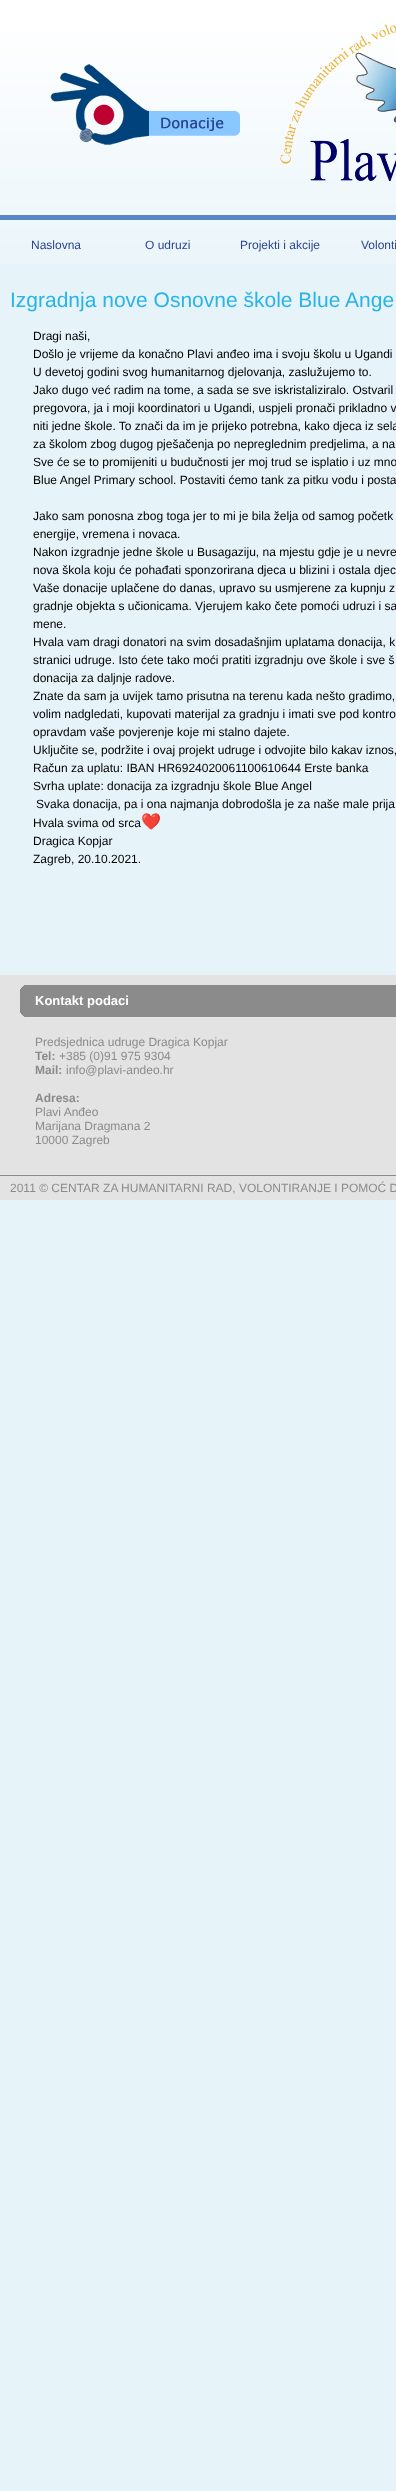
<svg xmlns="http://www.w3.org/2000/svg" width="396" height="2491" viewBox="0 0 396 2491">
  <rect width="100%" height="100%" fill="#e6f3f9"/>
  <image x="0" y="0" width="396" height="264" href="img/1.png"/>
  <path d="M0 215h396v5H0z" fill="#5985c9"/>
  <image x="50" y="64" width="190" height="81" href="img/2.png"/>
  <image x="280" y="24" width="116" height="158" href="img/3.png"/>
  <path d="M0 975h396v225H0z" fill="#e3e3e3"/>
  <image x="20" y="985" width="376" height="32" href="img/4.png"/>
  <path d="M0 1175h396v1H0z" fill="#8b8b8b"/>
  <g font-family="Liberation Sans" font-size="12" fill="#2a4593">
    <text x="31" y="249">Naslovna</text>
    <text x="145" y="249">O udruzi</text>
    <text x="240" y="249">Projekti i akcije</text>
    <text x="361" y="249">Volonti</text>
  </g>
  <text x="10" y="307" font-family="Liberation Sans" font-size="21" fill="#28b4ea">Izgradnja nove Osnovne škole Blue Ange</text>
  <g font-family="Liberation Sans" font-size="12" fill="#000">
    <text x="33" y="340">Dragi naši,</text>
    <text x="33" y="358">Došlo je vrijeme da konačno Plavi anđeo ima i svoju školu u Ugandi</text>
    <text x="33" y="376">U devetoj godini svog humanitarnog djelovanja, zaslužujemo to.</text>
    <text x="33" y="394">Jako dugo već radim na tome, a sada se sve iskristaliziralo. Ostvaril</text>
    <text x="33" y="412">pregovora, ja i moji koordinatori u Ugandi, uspjeli pronači prikladno v</text>
    <text x="33" y="430">niti jedne škole. To znači da im je prijeko potrebna, kako djeca iz sela</text>
    <text x="33" y="448">za školom zbog dugog pješačenja po nepreglednim predjelima, a na</text>
    <text x="33" y="466">Sve će se to promijeniti u budučnosti jer moj trud se isplatio i uz mno</text>
    <text x="33" y="484">Blue Angel Primary school. Postaviti ćemo tank za pitku vodu i posta</text>
    <text x="33" y="520">Jako sam ponosna zbog toga jer to mi je bila želja od samog početk</text>
    <text x="33" y="538">energije, vremena i novaca.</text>
    <text x="33" y="556">Nakon izgradnje jedne škole u Busagaziju, na mjestu gdje je u nevre</text>
    <text x="33" y="574">nova škola koju će pohađati sponzorirana djeca u blizini i ostala djec</text>
    <text x="33" y="592">Vaše donacije uplačene do danas, upravo su usmjerene za kupnju z</text>
    <text x="33" y="610">gradnje objekta s učionicama. Vjerujem kako čete pomoći udruzi i sa</text>
    <text x="33" y="628">mene.</text>
    <text x="33" y="646">Hvala vam dragi donatori na svim dosadašnjim uplatama donacija, k</text>
    <text x="33" y="664">stranici udruge. Isto ćete tako moći pratiti izgradnju ove škole i sve š</text>
    <text x="33" y="682">donacija za daljnje radove.</text>
    <text x="33" y="700">Znate da sam ja uvijek tamo prisutna na terenu kada nešto gradimo,</text>
    <text x="33" y="718">volim nadgledati, kupovati materijal za gradnju i imati sve pod kontro</text>
    <text x="33" y="736">opravdam vaše povjerenje koje mi stalno dajete.</text>
    <text x="33" y="754">Uključite se, podržite i ovaj projekt udruge i odvojite bilo kakav iznos,</text>
    <text x="33" y="772">Račun za uplatu: IBAN HR6924020061100610644 Erste banka</text>
    <text x="33" y="790">Svrha uplate: donacija za izgradnju škole Blue Angel</text>
    <text x="36" y="808">Svaka donacija, pa i ona najmanja dobrodošla je za naše male prija</text>
    <text x="33" y="827">Hvala svima od srca</text>
  </g>
  <text x="141" y="827" font-family="Noto Color Emoji" font-size="16" fill="#000">❤️</text>
  <g font-family="Liberation Sans" font-size="12" fill="#000">
    <text x="33" y="845">Dragica Kopjar</text>
    <text x="33" y="863">Zagreb, 20.10.2021.</text>
  </g>
  <text x="35" y="1005" font-family="Liberation Sans" font-size="13" font-weight="bold" fill="#fff">Kontakt podaci</text>
  <text x="35" y="1046" font-family="Liberation Sans" font-size="12" fill="#8b8b8b">Predsjednica udruge Dragica Kopjar</text>
  <text x="35" y="1060" font-family="Liberation Sans" font-size="12" font-weight="bold" fill="#8b8b8b">Tel:</text>
  <text x="59" y="1060" font-family="Liberation Sans" font-size="12" fill="#8b8b8b">+385 (0)91 975 9304</text>
  <text x="35" y="1074" font-family="Liberation Sans" font-size="12" font-weight="bold" fill="#8b8b8b">Mail:</text>
  <text x="66" y="1074" font-family="Liberation Sans" font-size="12" fill="#8b8b8b">info@plavi-andeo.hr</text>
  <text x="35" y="1102" font-family="Liberation Sans" font-size="12" font-weight="bold" fill="#8b8b8b">Adresa:</text>
  <g font-family="Liberation Sans" font-size="12" fill="#8b8b8b">
    <text x="35" y="1116">Plavi Anđeo</text>
    <text x="35" y="1130">Marijana Dragmana 2</text>
    <text x="35" y="1144">10000 Zagreb</text>
    <text x="10" y="1192">2011 © CENTAR ZA HUMANITARNI RAD, VOLONTIRANJE I POMOĆ D</text>
  </g>
</svg>
